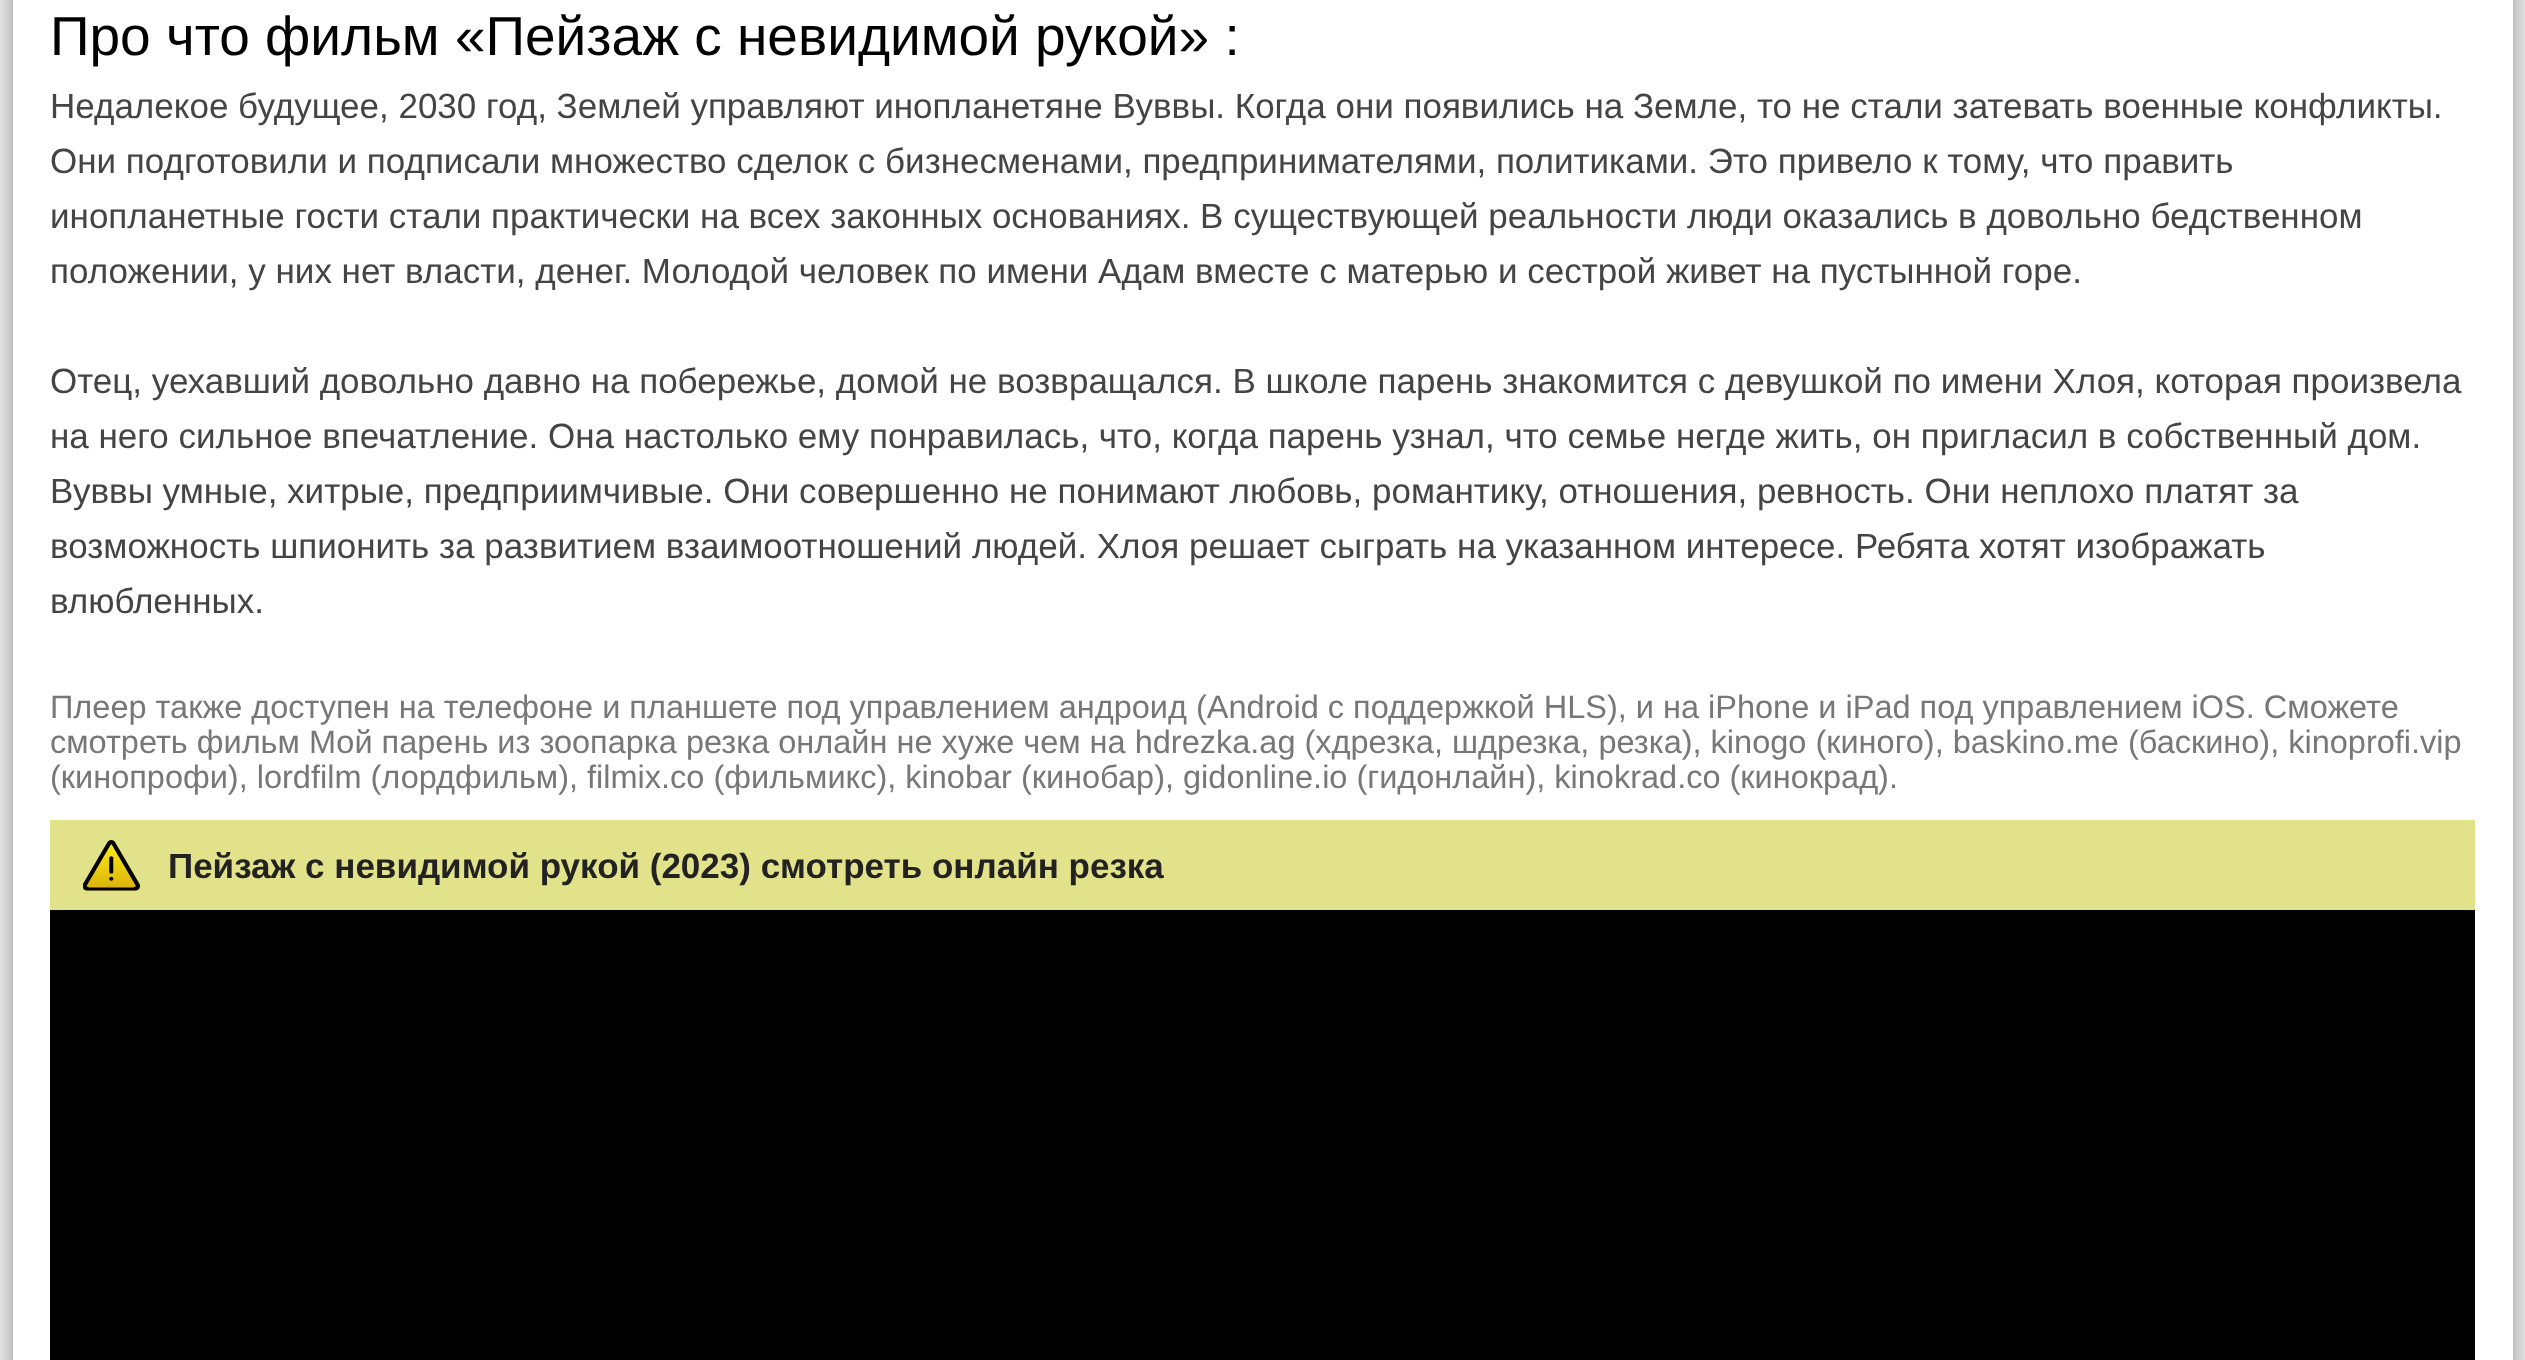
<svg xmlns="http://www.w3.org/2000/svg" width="2525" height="1360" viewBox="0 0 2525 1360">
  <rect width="100%" height="100%" fill="#efefef"/>
  <path d="M13 -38h2500v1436H13z" fill="#00000066" filter="blur(12.5px)"/>
  <path d="M13 0h2500v1360H13z" fill="#fff"/>
  <path d="M50 820h2425v90H50z" fill="#e1e289"/>
  <image x="83" y="840" width="57" height="51" href="img/1.png"/>
  <path d="M50 910h2425v450H50z" fill="#000"/>
  <text x="50" y="55" font-family="Liberation Sans" font-size="55" fill="#000">Про что фильм «Пейзаж с невидимой рукой» :</text>
  <g font-family="Liberation Sans" font-size="35" fill="#444">
    <text x="50" y="118">Недалекое будущее, 2030 год, Землей управляют инопланетяне Вуввы. Когда они появились на Земле, то не стали затевать военные конфликты.</text>
    <text x="50" y="173">Они подготовили и подписали множество сделок с бизнесменами, предпринимателями, политиками. Это привело к тому, что править</text>
    <text x="50" y="228">инопланетные гости стали практически на всех законных основаниях. В существующей реальности люди оказались в довольно бедственном</text>
    <text x="50" y="283">положении, у них нет власти, денег. Молодой человек по имени Адам вместе с матерью и сестрой живет на пустынной горе.</text>
    <text x="50" y="393">Отец, уехавший довольно давно на побережье, домой не возвращался. В школе парень знакомится с девушкой по имени Хлоя, которая произвела</text>
    <text x="50" y="448">на него сильное впечатление. Она настолько ему понравилась, что, когда парень узнал, что семье негде жить, он пригласил в собственный дом.</text>
    <text x="50" y="503">Вуввы умные, хитрые, предприимчивые. Они совершенно не понимают любовь, романтику, отношения, ревность. Они неплохо платят за</text>
    <text x="50" y="558">возможность шпионить за развитием взаимоотношений людей. Хлоя решает сыграть на указанном интересе. Ребята хотят изображать</text>
    <text x="50" y="613">влюбленных.</text>
  </g>
  <g font-family="Liberation Sans" font-size="32.5" fill="#777">
    <text x="50" y="718">Плеер также доступен на телефоне и планшете под управлением андроид (Android с поддержкой HLS), и на iPhone и iPad под управлением iOS. Сможете</text>
    <text x="50" y="753">смотреть фильм Мой парень из зоопарка резка онлайн не хуже чем на hdrezka.ag (хдрезка, шдрезка, резка), kinogo (киного), baskino.me (баскино), kinoprofi.vip</text>
    <text x="50" y="788">(кинопрофи), lordfilm (лордфильм), filmix.co (фильмикс), kinobar (кинобар), gidonline.io (гидонлайн), kinokrad.сo (кинокрад).</text>
  </g>
  <text x="168" y="878" font-family="Liberation Sans" font-size="35" font-weight="bold" fill="#222">Пейзаж с невидимой рукой (2023) смотреть онлайн резка</text>
</svg>
